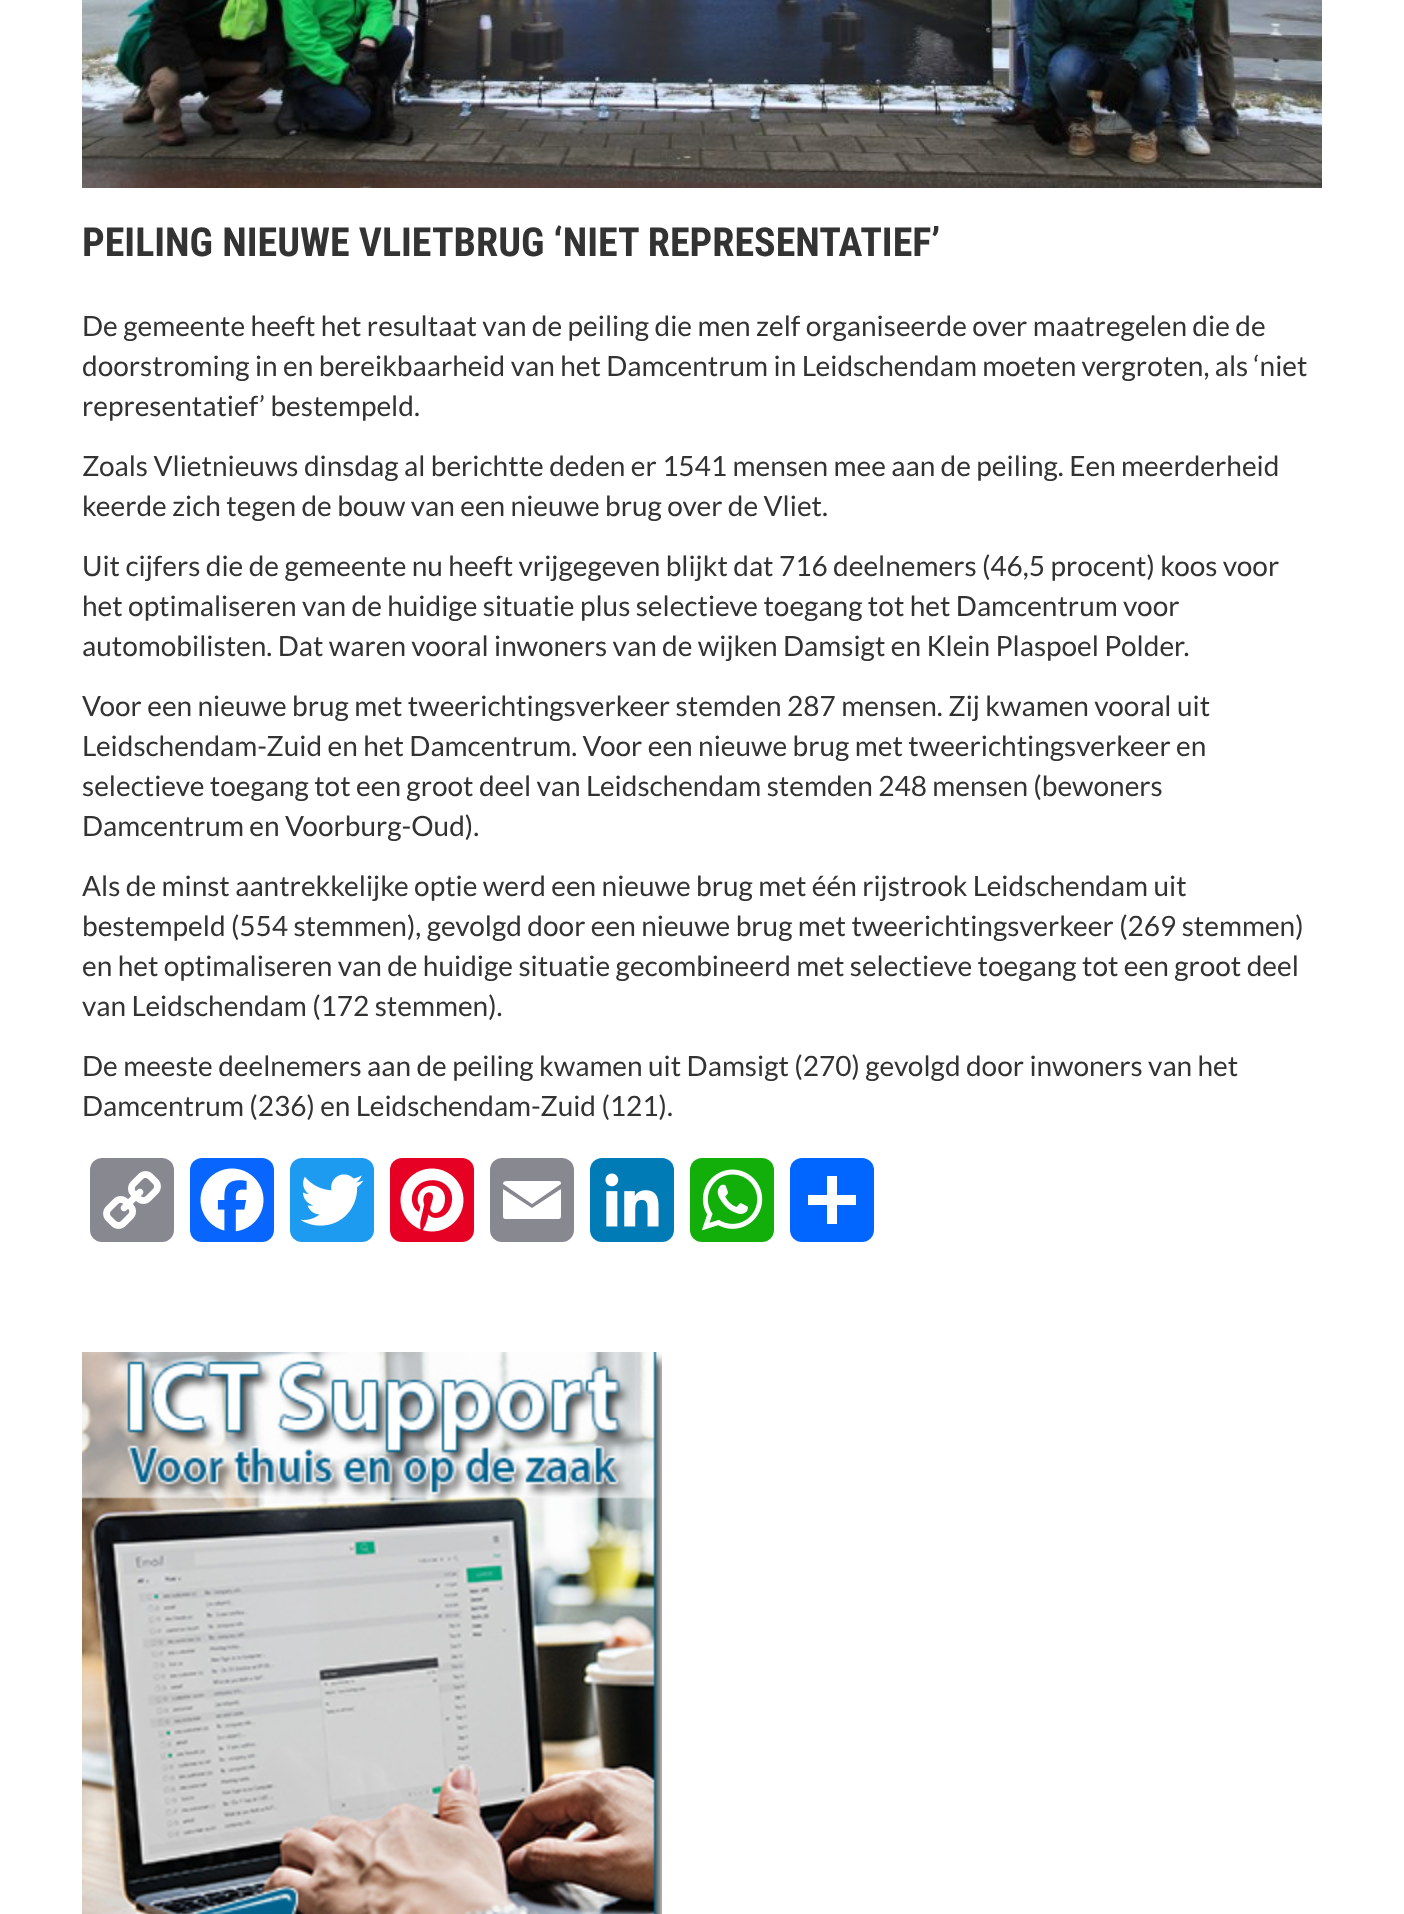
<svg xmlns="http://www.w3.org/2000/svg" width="1404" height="1914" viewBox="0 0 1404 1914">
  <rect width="100%" height="100%" fill="#fff"/>
  <image x="82" y="0" width="1240" height="188" href="img/1.png"/>
  <rect x="90" y="1158" width="84" height="84" rx="12" fill="#888990"/>
  <image x="103" y="1171" width="58" height="58" href="img/2.png"/>
  <rect x="190" y="1158" width="84" height="84" rx="12" fill="#0866ff"/>
  <image x="200" y="1168" width="64" height="64" href="img/3.png"/>
  <rect x="290" y="1158" width="84" height="84" rx="12" fill="#1d9bf0"/>
  <image x="300" y="1174" width="64" height="52" href="img/4.png"/>
  <rect x="390" y="1158" width="84" height="84" rx="12" fill="#e60023"/>
  <image x="400" y="1168" width="64" height="64" href="img/5.png"/>
  <rect x="490" y="1158" width="84" height="84" rx="12" fill="#888990"/>
  <path d="M561 1215V1189L532 1208L503 1189V1215C503 1219 504 1219 507 1219H557C560 1219 561 1219 561 1215M561 1184C561 1181 560 1181 557 1181H507C504 1181 503 1182 503 1184L532 1204Z" fill="#fff"/>
  <rect x="590" y="1158" width="84" height="84" rx="12" fill="#007bb5"/>
  <image x="605" y="1173" width="54" height="54" href="img/6.png"/>
  <rect x="690" y="1158" width="84" height="84" rx="12" fill="#12af0a"/>
  <image x="701" y="1169" width="62" height="62" href="img/7.png"/>
  <rect x="790" y="1158" width="84" height="84" rx="12" fill="#0166ff"/>
  <path d="M827 1176h10v48H827z" fill="#fff"/>
  <path d="M808 1195h48v10H808z" fill="#fff"/>
  <image x="82" y="1352" width="580" height="562" href="img/8.png"/>
  <text x="82" y="256" font-family="Roboto Condensed" font-size="40" font-weight="bold" fill="#333">PEILING NIEUWE VLIETBRUG ‘NIET REPRESENTATIEF’</text>
  <g font-family="Lato" font-size="28" fill="#333">
    <text x="82" y="336">De gemeente heeft het resultaat van de peiling die men zelf organiseerde over maatregelen die de</text>
    <text x="82" y="376">doorstroming in en bereikbaarheid van het Damcentrum in Leidschendam moeten vergroten, als ‘niet</text>
    <text x="82" y="416">representatief’ bestempeld.</text>
    <text x="82" y="476">Zoals Vlietnieuws dinsdag al berichtte deden er 1541 mensen mee aan de peiling. Een meerderheid</text>
    <text x="82" y="516">keerde zich tegen de bouw van een nieuwe brug over de Vliet.</text>
    <text x="82" y="576">Uit cijfers die de gemeente nu heeft vrijgegeven blijkt dat 716 deelnemers (46,5 procent) koos voor</text>
    <text x="82" y="616">het optimaliseren van de huidige situatie plus selectieve toegang tot het Damcentrum voor</text>
    <text x="82" y="656">automobilisten. Dat waren vooral inwoners van de wijken Damsigt en Klein Plaspoel Polder.</text>
    <text x="82" y="716">Voor een nieuwe brug met tweerichtingsverkeer stemden 287 mensen. Zij kwamen vooral uit</text>
    <text x="82" y="756">Leidschendam-Zuid en het Damcentrum. Voor een nieuwe brug met tweerichtingsverkeer en</text>
    <text x="82" y="796">selectieve toegang tot een groot deel van Leidschendam stemden 248 mensen (bewoners</text>
    <text x="82" y="836">Damcentrum en Voorburg-Oud).</text>
    <text x="82" y="896">Als de minst aantrekkelijke optie werd een nieuwe brug met één rijstrook Leidschendam uit</text>
    <text x="82" y="936">bestempeld (554 stemmen), gevolgd door een nieuwe brug met tweerichtingsverkeer (269 stemmen)</text>
    <text x="82" y="976">en het optimaliseren van de huidige situatie gecombineerd met selectieve toegang tot een groot deel</text>
    <text x="82" y="1016">van Leidschendam (172 stemmen).</text>
    <text x="82" y="1076">De meeste deelnemers aan de peiling kwamen uit Damsigt (270) gevolgd door inwoners van het</text>
    <text x="82" y="1116">Damcentrum (236) en Leidschendam-Zuid (121).</text>
  </g>
</svg>
